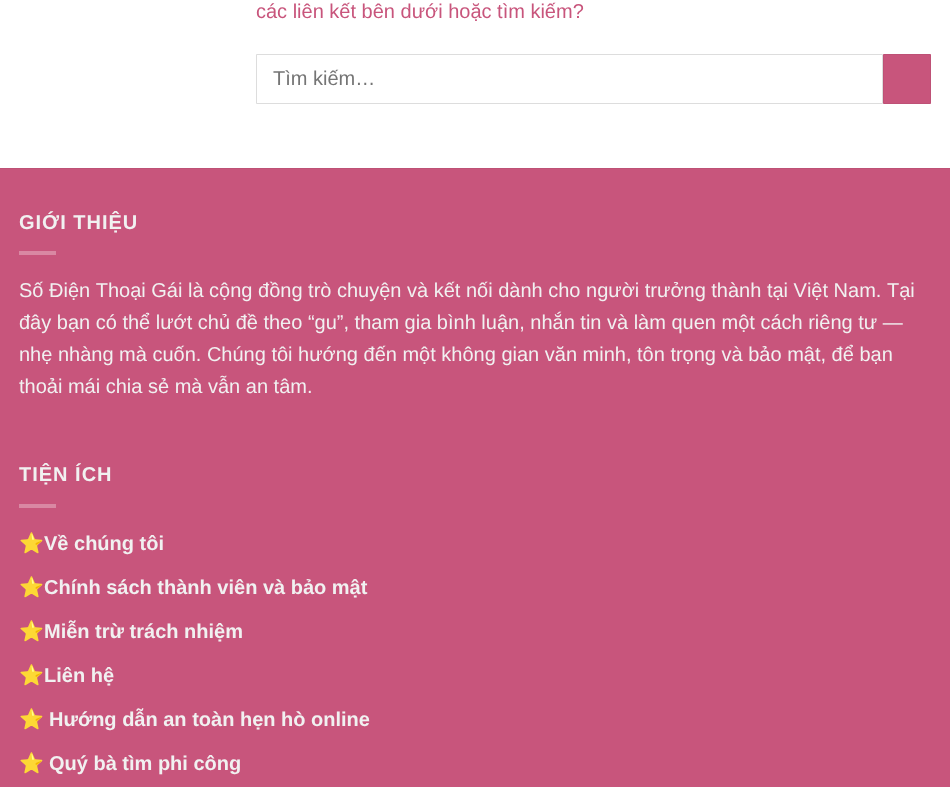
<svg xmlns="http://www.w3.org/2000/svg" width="950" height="787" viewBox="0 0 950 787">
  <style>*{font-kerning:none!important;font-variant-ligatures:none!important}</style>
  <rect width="100%" height="100%" fill="#fff"/>
  <path d="M256.5 54.5h626v49H256.5z" fill="none" stroke="#ddd"/>
  <path d="M883.5 54.5h47v49H883.5z" fill="#c8557c" stroke="#be5176"/>
  <path d="M0 169h950v618H0z" fill="#c8557c"/>
  <path d="M0 168h950v1H0z" fill="#be5176"/>
  <path d="M19 251h37v4H19z" fill="#d988a3"/>
  <path d="M19 504h37v4H19z" fill="#d988a3"/>
  <text x="256" y="18" font-family="Liberation Sans" font-size="20" fill="#c8557c">các liên kết bên dưới hoặc tìm kiếm?</text>
  <text x="273" y="85" font-family="Liberation Sans" font-size="20" fill="#757575">Tìm kiếm…</text>
  <text x="19" y="229" font-family="Liberation Sans" font-size="20" font-weight="bold" letter-spacing="1" fill="#f1f1f1">GIỚI THIỆU</text>
  <g font-family="Liberation Sans" font-size="20" fill="#f1f1f1">
    <text x="19" y="297">Số Điện Thoại Gái là cộng đồng trò chuyện và kết nối dành cho người trưởng thành tại Việt Nam. Tại</text>
    <text x="19" y="329">đây bạn có thể lướt chủ đề theo “gu”, tham gia bình luận, nhắn tin và làm quen một cách riêng tư —</text>
    <text x="19" y="361">nhẹ nhàng mà cuốn. Chúng tôi hướng đến một không gian văn minh, tôn trọng và bảo mật, để bạn</text>
    <text x="19" y="393">thoải mái chia sẻ mà vẫn an tâm.</text>
  </g>
  <text x="19" y="481" font-family="Liberation Sans" font-size="20" font-weight="bold" letter-spacing="1" fill="#f1f1f1">TIỆN ÍCH</text>
  <text x="19" y="550" font-family="Noto Color Emoji" font-size="20" font-weight="bold" fill="#f1f1f1">⭐</text>
  <text x="44" y="550" font-family="Liberation Sans" font-size="20" font-weight="bold" fill="#f1f1f1">Về chúng tôi</text>
  <text x="19" y="594" font-family="Noto Color Emoji" font-size="20" font-weight="bold" fill="#f1f1f1">⭐</text>
  <text x="44" y="594" font-family="Liberation Sans" font-size="20" font-weight="bold" fill="#f1f1f1">Chính sách thành viên và bảo mật</text>
  <text x="19" y="638" font-family="Noto Color Emoji" font-size="20" font-weight="bold" fill="#f1f1f1">⭐</text>
  <text x="44" y="638" font-family="Liberation Sans" font-size="20" font-weight="bold" fill="#f1f1f1">Miễn trừ trách nhiệm</text>
  <text x="19" y="682" font-family="Noto Color Emoji" font-size="20" font-weight="bold" fill="#f1f1f1">⭐</text>
  <text x="44" y="682" font-family="Liberation Sans" font-size="20" font-weight="bold" fill="#f1f1f1">Liên hệ</text>
  <text x="19" y="726" font-family="Noto Color Emoji" font-size="20" font-weight="bold" fill="#f1f1f1">⭐</text>
  <text x="49" y="726" font-family="Liberation Sans" font-size="20" font-weight="bold" fill="#f1f1f1">Hướng dẫn an toàn hẹn hò online</text>
  <text x="19" y="770" font-family="Noto Color Emoji" font-size="20" font-weight="bold" fill="#f1f1f1">⭐</text>
  <text x="49" y="770" font-family="Liberation Sans" font-size="20" font-weight="bold" fill="#f1f1f1">Quý bà tìm phi công</text>
</svg>
